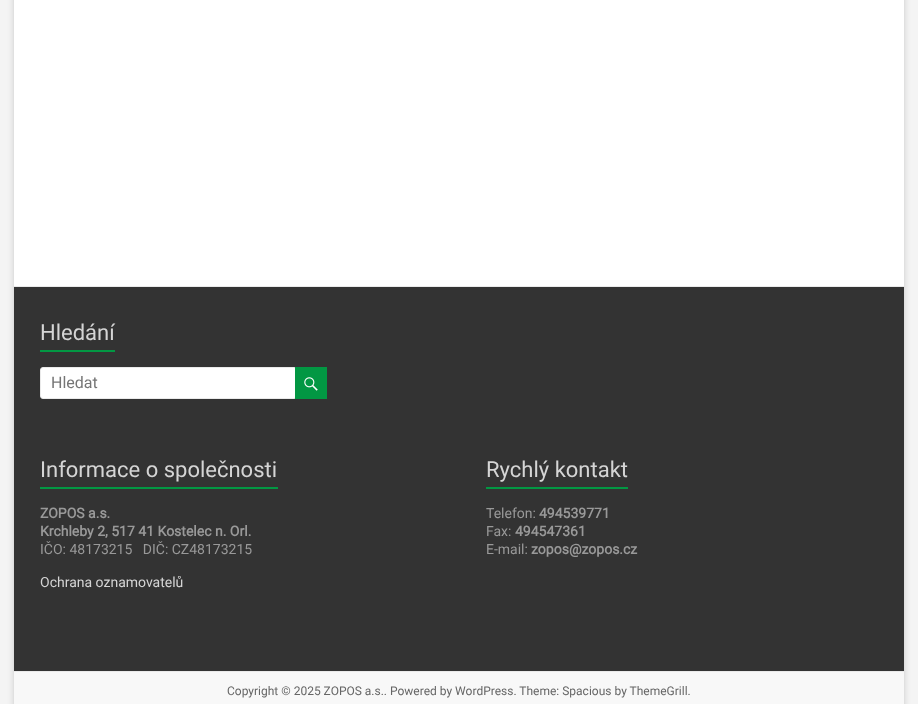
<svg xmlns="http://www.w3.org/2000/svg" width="918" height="704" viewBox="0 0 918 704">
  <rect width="100%" height="100%" fill="#f4f4f4"/>
  <path d="M14 -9h890v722H14z" fill="#6464644d" filter="blur(3px)"/>
  <path d="M14 0h890v286H14z" fill="#fff"/>
  <path d="M14 287h890v384H14z" fill="#333"/>
  <path d="M14 286h890v1H14z" fill="#eaeaea"/>
  <path d="M40 350h75v2H40z" fill="#029743"/>
  <rect x="40.5" y="367.5" width="256" height="31" rx="2.5" fill="#fff" stroke="#eaeaea"/>
  <path d="M295 367h32v32H295z" fill="#029743"/>
  <image x="304" y="377" width="14" height="14" href="img/1.png"/>
  <path d="M40 487h238v2H40z" fill="#029743"/>
  <path d="M486 487h142v2H486z" fill="#029743"/>
  <path d="M14 672h890v32H14z" fill="#f8f8f8"/>
  <path d="M14 671h890v1H14z" fill="#eaeaea"/>
  <text x="40" y="340" font-family="Roboto" font-size="22" fill="#d5d5d5">Hledání</text>
  <text x="51" y="388" font-family="Roboto" font-size="16" fill="#757575">Hledat</text>
  <text x="40" y="477" font-family="Roboto" font-size="22" fill="#d5d5d5">Informace o společnosti</text>
  <g font-family="Roboto" font-size="14" font-weight="bold" fill="#999">
    <text x="40" y="518">ZOPOS a.s.</text>
    <text x="40" y="536">Krchleby 2, 517 41 Kostelec n. Orl.</text>
  </g>
  <text x="40" y="554" font-family="Roboto" font-size="14" fill="#999" xml:space="preserve">IČO: 48173215   DIČ: CZ48173215</text>
  <text x="40" y="587" font-family="Roboto" font-size="14" fill="#d5d5d5">Ochrana oznamovatelů</text>
  <text x="486" y="477" font-family="Roboto" font-size="22" fill="#d5d5d5">Rychlý kontakt</text>
  <text x="486" y="518" font-family="Roboto" font-size="14" fill="#999">Telefon:</text>
  <text x="539" y="518" font-family="Roboto" font-size="14" font-weight="bold" fill="#999">494539771</text>
  <text x="486" y="536" font-family="Roboto" font-size="14" fill="#999">Fax:</text>
  <text x="515" y="536" font-family="Roboto" font-size="14" font-weight="bold" fill="#999">494547361</text>
  <text x="486" y="554" font-family="Roboto" font-size="14" fill="#999">E-mail:</text>
  <text x="531" y="554" font-family="Roboto" font-size="14" font-weight="bold" fill="#999">zopos@zopos.cz</text>
  <text x="227" y="695" font-family="Roboto" font-size="12" fill="#666">Copyright © 2025 ZOPOS a.s.. Powered by WordPress. Theme: Spacious by ThemeGrill.</text>
</svg>
